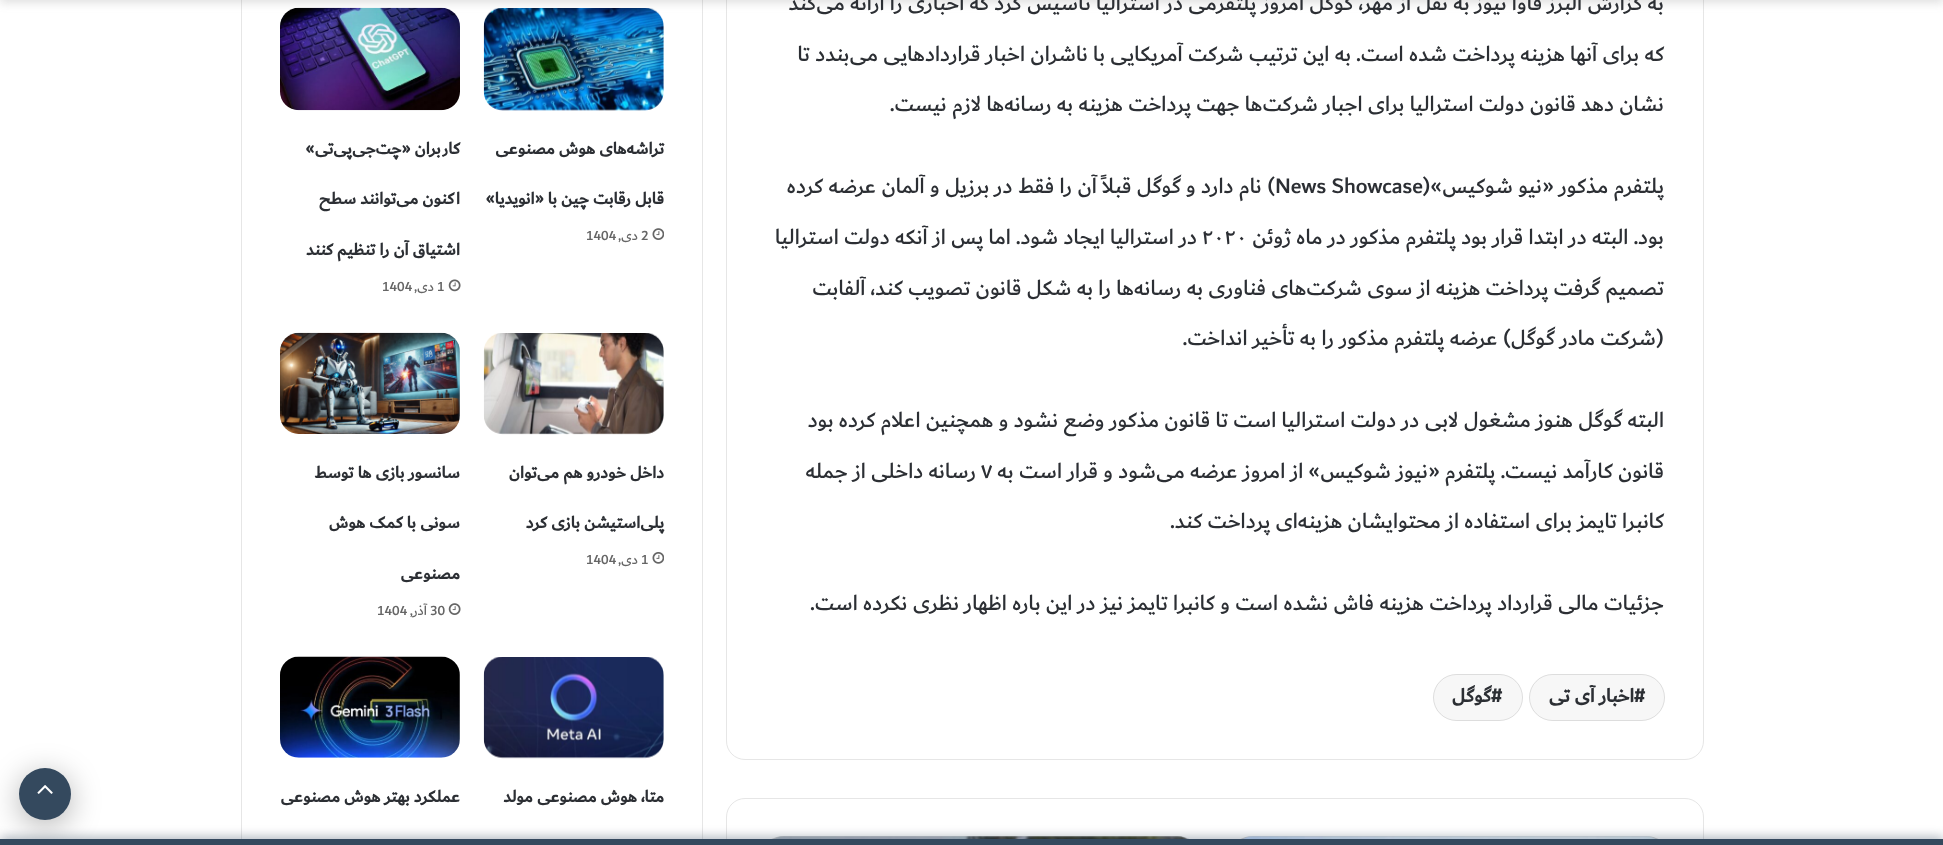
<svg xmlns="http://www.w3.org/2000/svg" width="1943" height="845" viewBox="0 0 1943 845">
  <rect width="100%" height="100%" fill="#fff"/>
  <rect x="726.5" y="-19.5" width="977" height="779" rx="18.5" fill="none" stroke="#e6e6e6"/>
  <path d="M241.5 -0.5h461v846H241.5z" fill="none" stroke="#e6e6e6"/>
  <image x="483" y="8" width="181" height="103" href="img/3.png"/>
  <image x="280" y="7" width="180" height="104" href="img/5.png"/>
  <path d="M0 -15h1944v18H0z" fill="#63636333" filter="blur(5px)"/>
  <rect x="1529" y="674" width="136" height="47" rx="23.5" fill="#f7f7f7"/>
  <rect x="1529.5" y="674.5" width="135" height="46" rx="23" fill="none" stroke="#0000001a"/>
  <rect x="1433" y="674" width="90" height="47" rx="23.5" fill="#f7f7f7"/>
  <rect x="1433.5" y="674.5" width="89" height="46" rx="23" fill="none" stroke="#0000001a"/>
  <rect x="726.5" y="798.5" width="977" height="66" rx="18.5" fill="none" stroke="#e6e6e6"/>
  <rect x="1234" y="836" width="431" height="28" rx="19" fill="#ccc"/>
  <image x="1242" y="836" width="414" height="3" href="img/1.png"/>
  <rect x="765" y="836" width="431" height="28" rx="19" fill="#ccc"/>
  <image x="774" y="836" width="413" height="3" href="img/2.png"/>
  <image x="652" y="228" width="12" height="12" href="img/4.png"/>
  <image x="448" y="279" width="13" height="13" href="img/6.png"/>
  <image x="483" y="333" width="181" height="102" href="img/7.png"/>
  <image x="652" y="552" width="12" height="12" href="img/8.png"/>
  <image x="280" y="332" width="180" height="102" href="img/9.png"/>
  <image x="448" y="603" width="13" height="12" href="img/10.png"/>
  <image x="483" y="657" width="181" height="102" href="img/11.png"/>
  <image x="280" y="656" width="180" height="102" href="img/12.png"/>
  <rect x="19" y="774" width="52" height="52" rx="26" fill="#0000004d" filter="blur(15.5px)"/>
  <circle cx="45" cy="794" r="26" fill="#34495e"/>
  <image x="37" y="785" width="16" height="9" href="img/13.png"/>
  <path d="M0 839h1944v6H0z" fill="#34495eb3" filter="blur(6px)"/>
  <path d="M0 839h1943v6H0z" fill="#34495e"/>
  <g font-family="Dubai" font-size="22.5" font-weight="500" direction="rtl" fill="#2c2f34">
    <text x="1664" y="10">به گزارش البرز فاوا نیوز به نقل از مهر، گوگل امروز پلتفرمی در استرالیا تأسیس کرد که اخباری را ارائه می‌کند</text>
    <text x="1664" y="61">که برای آنها هزینه پرداخت شده است. به این ترتیب شرکت آمریکایی با ناشران اخبار قراردادهایی می‌بندد تا</text>
    <text x="1664" y="111">نشان دهد قانون دولت استرالیا برای اجبار شرکت‌ها جهت پرداخت هزینه به رسانه‌ها لازم نیست.</text>
    <text x="1664" y="193">پلتفرم مذکور «نیو شوکیس»(</text>
  </g>
  <text x="1275" y="193" font-family="Dubai" font-size="22.5" font-weight="500" fill="#2c2f34">News Showcase</text>
  <g font-family="Dubai" font-size="22.5" font-weight="500" direction="rtl" fill="#2c2f34">
    <text x="1275" y="193">) نام دارد و گوگل قبلاً آن را فقط در برزیل و آلمان عرضه کرده</text>
    <text x="1664" y="244">بود. البته در ابتدا قرار بود پلتفرم مذکور در ماه ژوئن</text>
  </g>
  <text x="1202" y="244" font-family="Dubai" font-size="22.5" font-weight="500" fill="#2c2f34">۲۰۲۰</text>
  <g font-family="Dubai" font-size="22.5" font-weight="500" direction="rtl" fill="#2c2f34">
    <text x="1197" y="244">در استرالیا ایجاد شود. اما پس از آنکه دولت استرالیا</text>
    <text x="1664" y="295">تصمیم گرفت پرداخت هزینه از سوی شرکت‌های فناوری به رسانه‌ها را به شکل قانون تصویب کند، آلفابت</text>
    <text x="1664" y="345">(شرکت مادر گوگل) عرضه پلتفرم مذکور را به تأخیر انداخت.</text>
    <text x="1664" y="427">البته گوگل هنوز مشغول لابی در دولت استرالیا است تا قانون مذکور وضع نشود و همچنین اعلام کرده بود</text>
    <text x="1664" y="478">قانون کارآمد نیست. پلتفرم «نیوز شوکیس» از امروز عرضه می‌شود و قرار است به</text>
  </g>
  <text x="981" y="478" font-family="Dubai" font-size="22.5" font-weight="500" fill="#2c2f34">۷</text>
  <g font-family="Dubai" font-size="22.5" font-weight="500" direction="rtl" fill="#2c2f34">
    <text x="976" y="478">رسانه داخلی از جمله</text>
    <text x="1664" y="528">کانبرا تایمز برای استفاده از محتوایشان هزینه‌ای پرداخت کند.</text>
    <text x="1664" y="610">جزئیات مالی قرارداد پرداخت هزینه فاش نشده است و کانبرا تایمز نیز در این باره اظهار نظری نکرده است.‌</text>
  </g>
  <text x="1634" y="702" font-family="Dubai" font-size="20" font-weight="bold" fill="#2c2f34">#</text>
  <text x="1634" y="702" font-family="Dubai" font-size="20" font-weight="bold" direction="rtl" fill="#2c2f34">اخبار آی تی</text>
  <text x="1491" y="702" font-family="Dubai" font-size="20" font-weight="bold" fill="#2c2f34">#</text>
  <text x="1491" y="702" font-family="Dubai" font-size="20" font-weight="bold" direction="rtl" fill="#2c2f34">گوگل</text>
  <g font-family="Dubai" font-size="17.5" font-weight="bold" direction="rtl" fill="#2c2f34">
    <text x="664" y="154">تراشه‌های هوش مصنوعی</text>
    <text x="664" y="204">قابل رقابت چین با «انویدیا»</text>
  </g>
  <text x="641" y="240" font-family="Dubai" font-size="14" font-weight="500" fill="#666">2</text>
  <text x="638" y="240" font-family="Dubai" font-size="14" font-weight="500" direction="rtl" fill="#666">دی,</text>
  <text x="586" y="240" font-family="Dubai" font-size="14" font-weight="500" fill="#666">1404</text>
  <g font-family="Dubai" font-size="17.5" font-weight="bold" direction="rtl" fill="#2c2f34">
    <text x="460" y="154">کاربران «چت‌جی‌پی‌تی»</text>
    <text x="460" y="204">اکنون می‌توانند سطح</text>
    <text x="460" y="255">اشتیاق آن را تنظیم کنند</text>
  </g>
  <text x="437" y="291" font-family="Dubai" font-size="14" font-weight="500" fill="#666">1</text>
  <text x="434" y="291" font-family="Dubai" font-size="14" font-weight="500" direction="rtl" fill="#666">دی,</text>
  <text x="382" y="291" font-family="Dubai" font-size="14" font-weight="500" fill="#666">1404</text>
  <g font-family="Dubai" font-size="17.5" font-weight="bold" direction="rtl" fill="#2c2f34">
    <text x="664" y="478">داخل خودرو هم می‌توان</text>
    <text x="664" y="528">پلی‌استیشن بازی کرد</text>
  </g>
  <text x="641" y="564" font-family="Dubai" font-size="14" font-weight="500" fill="#666">1</text>
  <text x="638" y="564" font-family="Dubai" font-size="14" font-weight="500" direction="rtl" fill="#666">دی,</text>
  <text x="586" y="564" font-family="Dubai" font-size="14" font-weight="500" fill="#666">1404</text>
  <g font-family="Dubai" font-size="17.5" font-weight="bold" direction="rtl" fill="#2c2f34">
    <text x="460" y="478">سانسور بازی ها توسط</text>
    <text x="460" y="528">سونی با کمک هوش</text>
    <text x="460" y="579">مصنوعی</text>
  </g>
  <text x="430" y="615" font-family="Dubai" font-size="14" font-weight="500" fill="#666">30</text>
  <text x="427" y="615" font-family="Dubai" font-size="14" font-weight="500" direction="rtl" fill="#666">آذر,</text>
  <text x="377" y="615" font-family="Dubai" font-size="14" font-weight="500" fill="#666">1404</text>
  <g font-family="Dubai" font-size="17.5" font-weight="bold" direction="rtl" fill="#2c2f34">
    <text x="664" y="802">متا، هوش مصنوعی مولد</text>
    <text x="460" y="802">عملکرد بهتر هوش مصنوعی</text>
  </g>
</svg>
